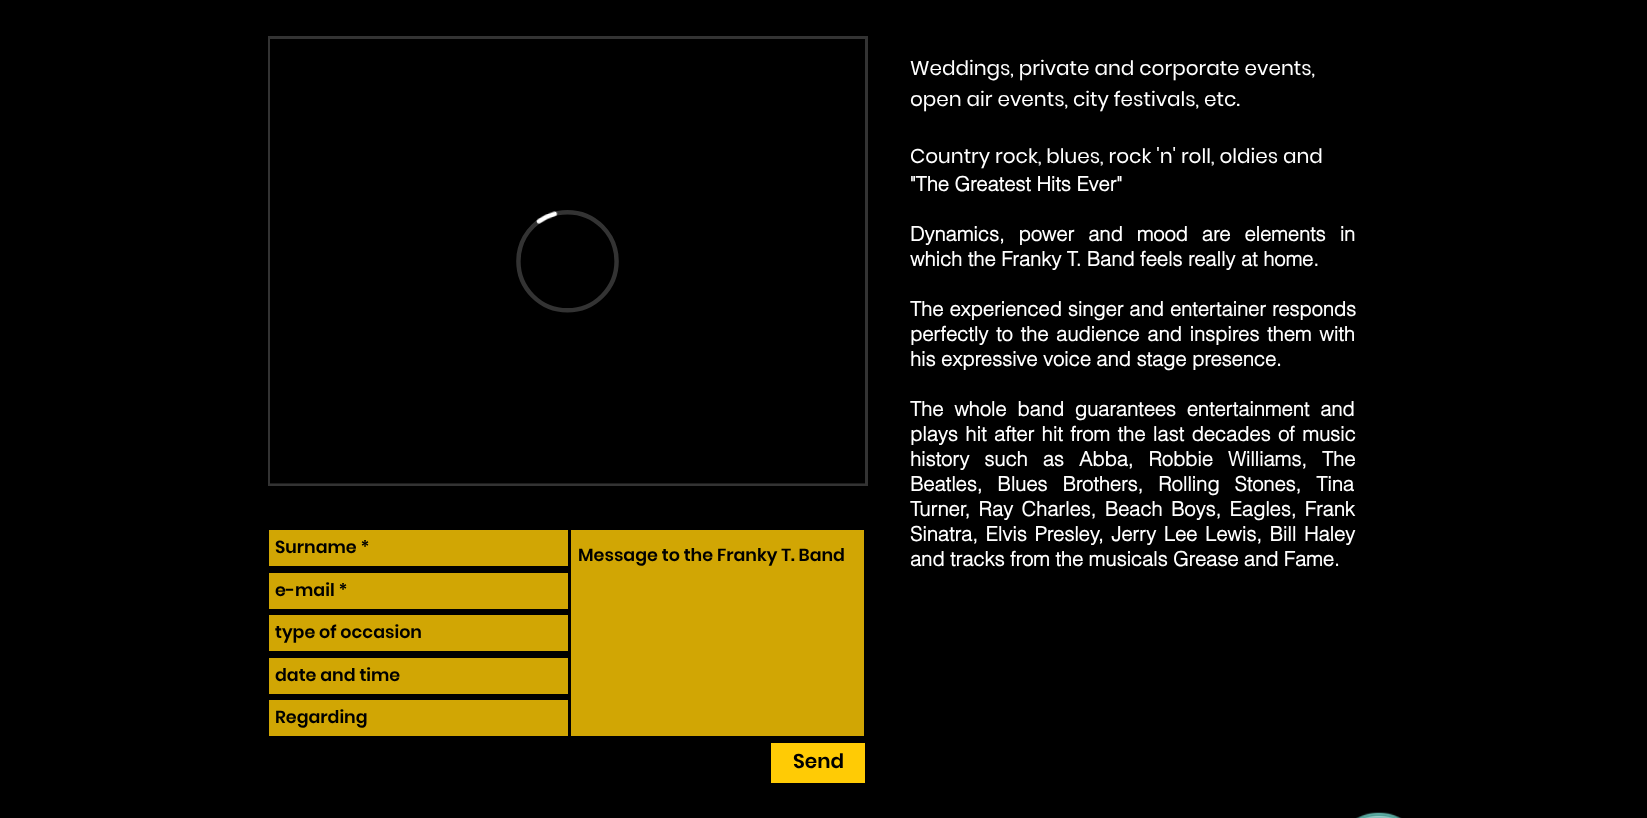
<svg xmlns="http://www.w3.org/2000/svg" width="1647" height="818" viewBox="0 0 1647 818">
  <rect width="100%" height="100%" fill="#000"/>
  <path d="M268 36h600v450H268z" fill="#333"/>
  <image x="270" y="39" width="595" height="445" href="img/1.png"/>
  <path d="M269 530h299v36H269z" fill="#d1a604"/>
  <path d="M571 530h293v206H571z" fill="#d1a604"/>
  <path d="M269 573h299v36H269z" fill="#d1a604"/>
  <path d="M269 615h299v36H269z" fill="#d1a604"/>
  <path d="M269 658h299v36H269z" fill="#d1a604"/>
  <path d="M269 700h299v36H269z" fill="#d1a604"/>
  <path d="M771 743h94v40H771z" fill="#ffcb05"/>
  <image x="1356" y="812" width="46" height="6" href="img/2.png"/>
  <g font-family="Poppins" font-size="20" fill="#fff">
    <text x="910" y="75">Weddings, private and corporate events,</text>
    <text x="910" y="106">open air events, city festivals, etc.</text>
    <text x="910" y="163">Country rock, blues, rock 'n' roll, oldies and</text>
  </g>
  <g font-family="helvetica" font-size="20" font-weight="bold" fill="#fff">
    <text x="910" y="191">"The Greatest Hits Ever"</text>
    <text x="910" y="241" word-spacing="8.5">Dynamics, power and mood are elements in</text>
    <text x="910" y="266">which the Franky T. Band feels really at home.</text>
    <text x="910" y="316" word-spacing="0.5">The experienced singer and entertainer responds</text>
    <text x="910" y="341" word-spacing="2.25">perfectly to the audience and inspires them with</text>
    <text x="910" y="366">his expressive voice and stage presence.</text>
    <text x="910" y="416" word-spacing="5.25">The whole band guarantees entertainment and</text>
    <text x="910" y="441" word-spacing="2">plays hit after hit from the last decades of music</text>
    <text x="910" y="466" word-spacing="9.5">history such as Abba, Robbie Williams, The</text>
    <text x="910" y="491" word-spacing="9.5">Beatles, Blues Brothers, Rolling Stones, Tina</text>
    <text x="910" y="516" word-spacing="3">Turner, Ray Charles, Beach Boys, Eagles, Frank</text>
    <text x="910" y="541" word-spacing="2.25">Sinatra, Elvis Presley, Jerry Lee Lewis, Bill Haley</text>
    <text x="910" y="566">and tracks from the musicals Grease and Fame.</text>
  </g>
  <g font-family="Poppins" font-size="17.5" font-weight="600" fill="#000">
    <text x="275" y="553">Surname *</text>
    <text x="578" y="561">Message to the Franky T. Band</text>
    <text x="275" y="596">e-mail *</text>
    <text x="275" y="638">type of occasion</text>
    <text x="275" y="681">date and time</text>
    <text x="275" y="723">Regarding</text>
  </g>
  <text x="793" y="768" font-family="Poppins" font-size="20" font-weight="600" fill="#000">Send</text>
</svg>
